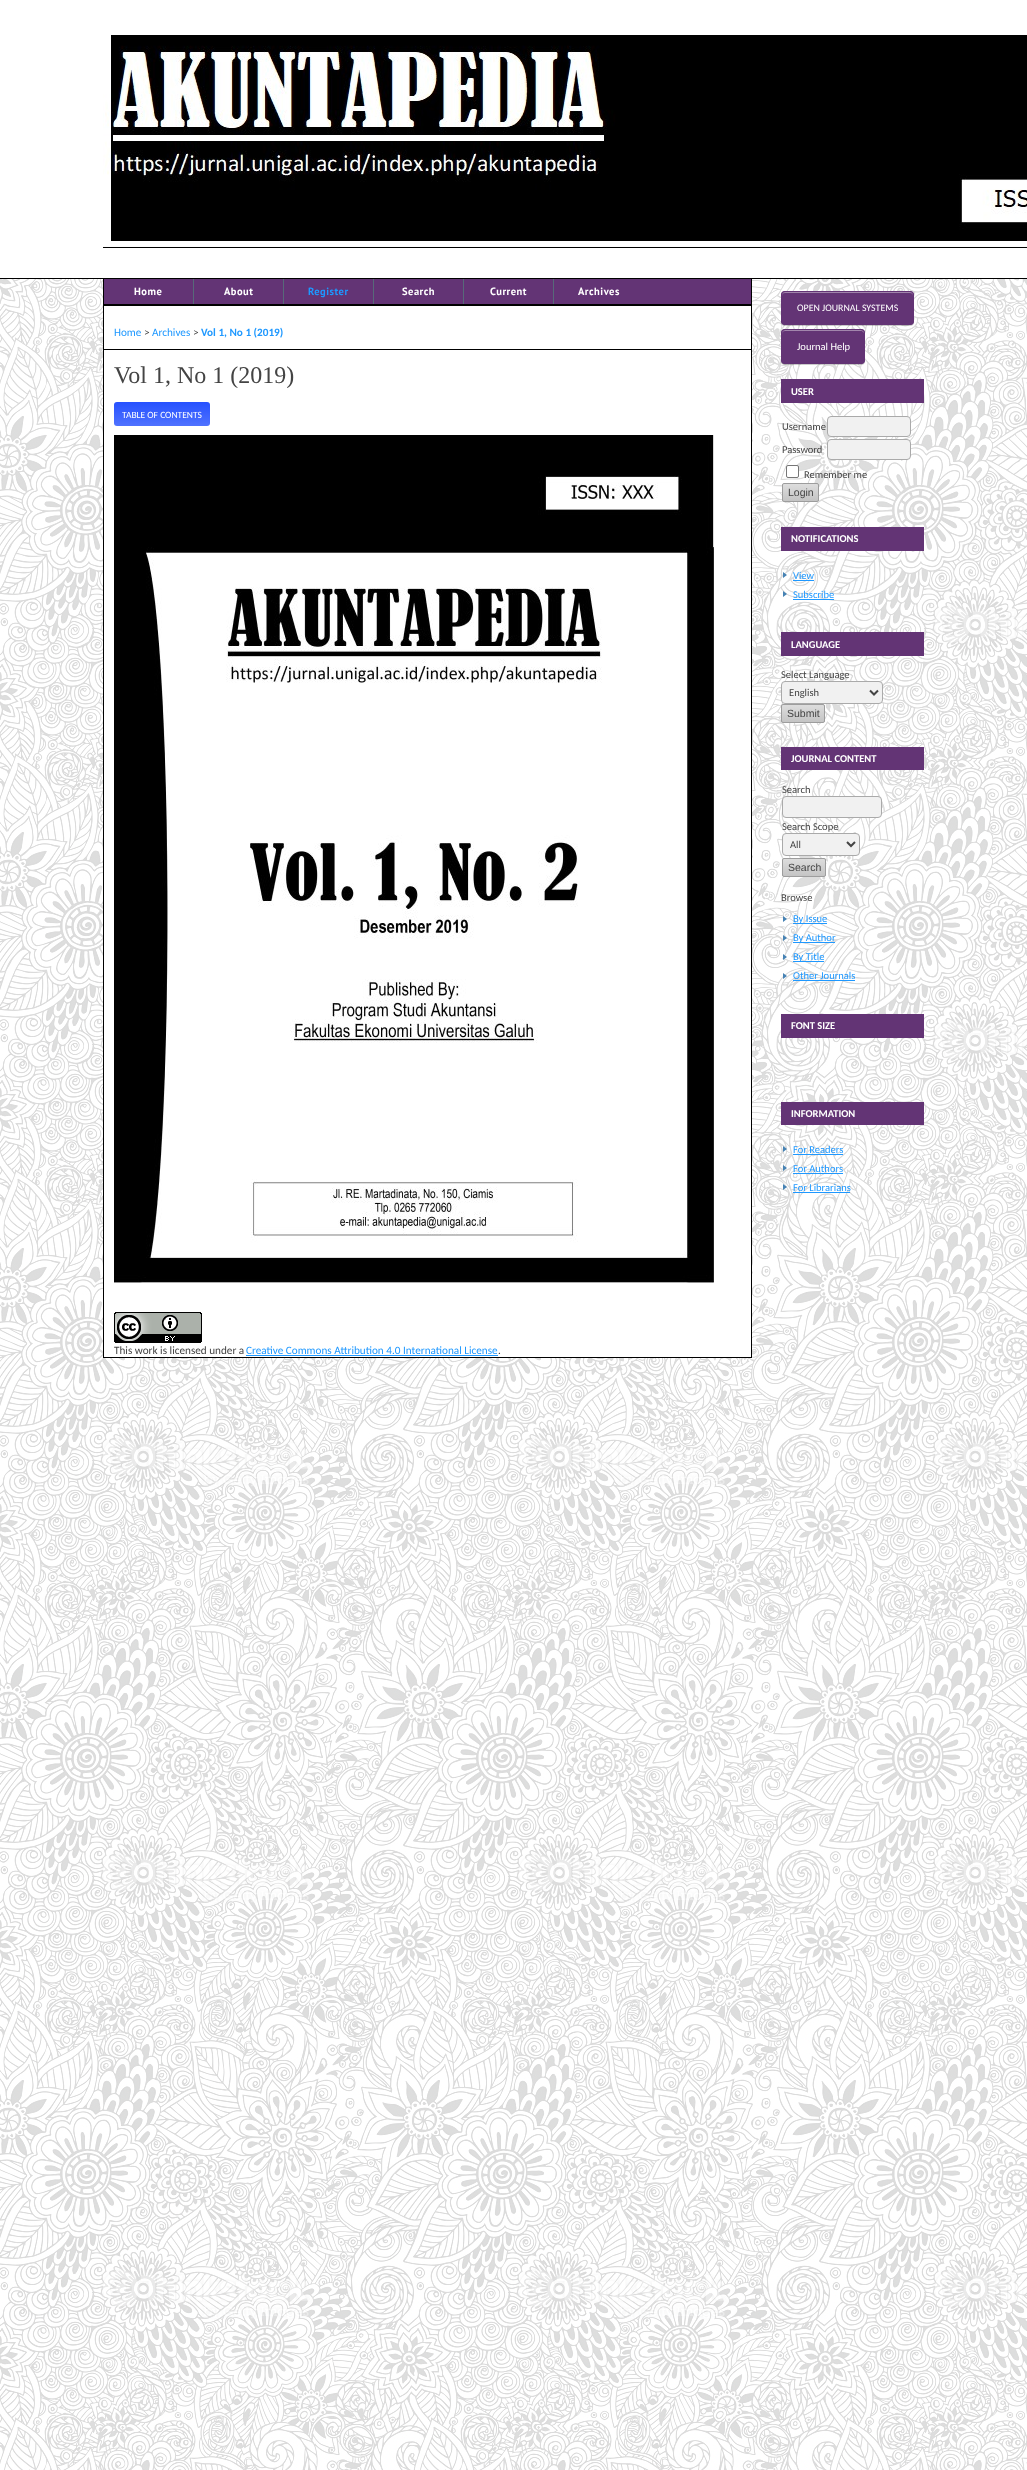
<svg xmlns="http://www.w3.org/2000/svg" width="1027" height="2470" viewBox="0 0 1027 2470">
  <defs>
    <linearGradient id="g1" gradientUnits="userSpaceOnUse" x1="162" y1="402" x2="162" y2="426"><stop offset="0" stop-color="#2651ff"/><stop offset="1" stop-color="#4f72ff"/></linearGradient>
    <clipPath id="clip1"><rect x="782" y="483" width="37" height="19" rx="2"/></clipPath>
    <linearGradient id="g2" gradientUnits="userSpaceOnUse" x1="801" y1="484" x2="801" y2="501"><stop offset="0" stop-color="#ddd"/><stop offset="1" stop-color="#c4c4c4"/></linearGradient>
    <clipPath id="clip2"><rect x="781" y="704" width="44" height="19" rx="2"/></clipPath>
    <linearGradient id="g3" gradientUnits="userSpaceOnUse" x1="803" y1="705" x2="803" y2="722"><stop offset="0" stop-color="#ddd"/><stop offset="1" stop-color="#c4c4c4"/></linearGradient>
    <clipPath id="clip3"><rect x="782" y="858" width="44" height="19" rx="2"/></clipPath>
    <linearGradient id="g4" gradientUnits="userSpaceOnUse" x1="804" y1="859" x2="804" y2="876"><stop offset="0" stop-color="#ddd"/><stop offset="1" stop-color="#c4c4c4"/></linearGradient>
  </defs>
  <rect width="100%" height="100%" fill="#fff"/>
  <image x="0" y="279" width="1027" height="2191" href="img/1.png"/>
  <path d="M0 278h1027v1H0z" fill="#000"/>
  <image x="103" y="35" width="924" height="213" href="img/2.png"/>
  <path d="M104 306h647v1051H104z" fill="#fff"/>
  <path d="M751 279h1v1079H751z" fill="#000"/>
  <path d="M103 1357h649v1H103z" fill="#000"/>
  <path d="M103 279h1v1079H103z" fill="#000"/>
  <path d="M104 279h647v25H104z" fill="#633475"/>
  <path d="M104 304h647v2H104z" fill="#000"/>
  <path d="M193 279h1v25H193z" fill="#576979"/>
  <path d="M283 279h1v25H283z" fill="#576979"/>
  <path d="M373 279h1v25H373z" fill="#576979"/>
  <path d="M463 279h1v25H463z" fill="#576979"/>
  <path d="M553 279h1v25H553z" fill="#576979"/>
  <path d="M104 349h647v1H104z" fill="#000"/>
  <rect x="114" y="402" width="96" height="24" rx="3" fill="url(#g1)"/>
  <image x="114" y="435" width="600" height="848" href="img/3.png"/>
  <image x="114" y="1312" width="88" height="31" href="img/4.png"/>
  <path d="M246 1355h252v1H246z" fill="#1e98ff"/>
  <rect x="781" y="292" width="133" height="34" rx="4" fill="#00000033" filter="blur(0.5px)"/>
  <rect x="781" y="291" width="133" height="34" rx="4" fill="#633475"/>
  <path d="M785 293H910C912 293 913 294 913 296C913 294 913 292 911 292H784C782 292 782 294 782 296C782 294 783 293 785 293Z" fill="#a185ac"/>
  <rect x="781.5" y="291.5" width="132" height="33" rx="3.5" fill="none" stroke="#633475"/>
  <rect x="781" y="330" width="84" height="35" rx="4" fill="#00000033" filter="blur(0.5px)"/>
  <rect x="781" y="329" width="84" height="35" rx="4" fill="#633475"/>
  <path d="M785 331H862L864 333C864 331 863 330 861 330H785C783 330 782 331 782 333V334C782 332 783 331 785 331ZM782 362V356Z" fill="#a185ac" fill-rule="evenodd"/>
  <rect x="781.5" y="329.5" width="83" height="34" rx="3.5" fill="none" stroke="#633475"/>
  <path d="M781 379h143v24H781z" fill="#633475"/>
  <rect x="827.5" y="416.5" width="83" height="20" rx="3.5" fill="#f1f1f1" stroke="#aaa"/>
  <rect x="827.5" y="439.5" width="83" height="20" rx="3.5" fill="#f1f1f1" stroke="#aaa"/>
  <rect x="786.5" y="465.5" width="12" height="12" rx="1.5" fill="#fff" stroke="#767676"/>
  <g clip-path="url(#clip1)">
    <path d="M782 484h37v17H782z" fill="url(#g2)"/>
  </g>
  <rect x="782.5" y="483.5" width="36" height="18" rx="1.5" fill="none" stroke="#9d9d9d"/>
  <path d="M781 527h143v24H781z" fill="#633475"/>
  <path d="M783 578V572L787 575ZM783 597V591L787 594Z" fill="#4682b4"/>
  <path d="M793 580h21v1H793z" fill="#1e98ff"/>
  <path d="M793 599h41v1H793z" fill="#1e98ff"/>
  <path d="M781 632h143v24H781z" fill="#633475"/>
  <rect x="781.5" y="681.5" width="101" height="22" rx="3.5" fill="#f1f1f1" stroke="#aaa"/>
  <path d="M870 690.5L874 694.5L878 690.5" fill="none" stroke="#444" stroke-width="2"/>
  <g clip-path="url(#clip2)">
    <path d="M781 705h44v17H781z" fill="url(#g3)"/>
  </g>
  <rect x="781.5" y="704.5" width="43" height="18" rx="1.5" fill="none" stroke="#9d9d9d"/>
  <path d="M781 747h143v23H781z" fill="#633475"/>
  <rect x="782.5" y="796.5" width="99" height="21" rx="3.5" fill="#f1f1f1" stroke="#aaa"/>
  <rect x="782.5" y="833.5" width="77" height="22" rx="3.5" fill="#f1f1f1" stroke="#aaa"/>
  <path d="M847 842L851 846L855 842" fill="none" stroke="#444" stroke-width="2"/>
  <g clip-path="url(#clip3)">
    <path d="M782 859h44v17H782z" fill="url(#g4)"/>
  </g>
  <rect x="782.5" y="858.5" width="43" height="18" rx="1.5" fill="none" stroke="#9d9d9d"/>
  <path d="M783 922V916L787 919ZM783 941V935L787 938ZM783 960V954L787 957ZM783 979V973L787 976Z" fill="#4682b4"/>
  <path d="M793 923h34v1H793z" fill="#1e98ff"/>
  <path d="M793 942h42v1H793z" fill="#1e98ff"/>
  <path d="M793 961h31v1H793z" fill="#1e98ff"/>
  <path d="M793 980h62v1H793z" fill="#1e98ff"/>
  <path d="M781 1014h143v24H781z" fill="#633475"/>
  <path d="M781 1102h143v23H781z" fill="#633475"/>
  <path d="M783 1152V1146L787 1149ZM783 1171V1165L787 1168ZM783 1190V1184L787 1187Z" fill="#4682b4"/>
  <path d="M793 1154h50v1H793z" fill="#1e98ff"/>
  <path d="M793 1173h50v1H793z" fill="#1e98ff"/>
  <path d="M793 1192h57v1H793z" fill="#1e98ff"/>
  <g font-family="PT Sans" font-size="10.5" font-weight="bold" letter-spacing="0.5" fill="#fff">
    <text x="134" y="295">Home</text>
    <text x="224" y="295">About</text>
  </g>
  <text x="308" y="295" font-family="PT Sans" font-size="10.5" font-weight="bold" letter-spacing="0.5" fill="#1e98ff">Register</text>
  <g font-family="PT Sans" font-size="10.5" font-weight="bold" letter-spacing="0.5" fill="#fff">
    <text x="402" y="295">Search</text>
    <text x="490" y="295">Current</text>
    <text x="578" y="295">Archives</text>
  </g>
  <text x="114" y="336" font-family="Carlito" font-size="11.2" fill="#1e98ff">Home</text>
  <text x="144" y="336" font-family="Carlito" font-size="11.2" fill="#444">&gt;</text>
  <text x="152" y="336" font-family="Carlito" font-size="11.2" fill="#1e98ff">Archives</text>
  <text x="193" y="336" font-family="Carlito" font-size="11.2" fill="#444">&gt;</text>
  <text x="201" y="336" font-family="Carlito" font-size="11.2" font-weight="bold" fill="#1e98ff">Vol 1, No 1 (2019)</text>
  <text x="114" y="383" font-family="Liberation Serif" font-size="24" fill="#444">Vol 1, No 1 (2019)</text>
  <text x="122" y="418" font-family="Carlito" font-size="9.5" fill="#fff">TABLE OF CONTENTS</text>
  <text x="114" y="1354" font-family="Carlito" font-size="11.2" fill="#444">This work is licensed under a</text>
  <text x="246" y="1354" font-family="Carlito" font-size="11.2" fill="#1e98ff">Creative Commons Attribution 4.0 International License</text>
  <text x="498" y="1354" font-family="Carlito" font-size="11.2" fill="#444">.</text>
  <text x="797" y="311" font-family="Carlito" font-size="9.9" fill="#fff">OPEN JOURNAL SYSTEMS</text>
  <text x="797" y="350" font-family="Carlito" font-size="10.5" fill="#fff">Journal Help</text>
  <text x="791" y="395" font-family="Carlito" font-size="10.5" font-weight="bold" fill="#fff">USER</text>
  <g font-family="Carlito" font-size="10.5" fill="#444">
    <text x="782" y="430">Username</text>
    <text x="782" y="453">Password</text>
    <text x="804" y="478">Remember me</text>
  </g>
  <text x="788" y="496" font-family="Liberation Sans" font-size="10.5" fill="#444">Login</text>
  <text x="791" y="542" font-family="Carlito" font-size="10.5" font-weight="bold" fill="#fff">NOTIFICATIONS</text>
  <g font-family="Carlito" font-size="10.5" fill="#1e98ff">
    <text x="793" y="579">View</text>
    <text x="793" y="598">Subscribe</text>
  </g>
  <text x="791" y="648" font-family="Carlito" font-size="10.5" font-weight="bold" fill="#fff">LANGUAGE</text>
  <g font-family="Carlito" font-size="10.5" fill="#444">
    <text x="781" y="678">Select Language</text>
    <text x="789" y="696">English</text>
  </g>
  <text x="787" y="717" font-family="Liberation Sans" font-size="10.5" fill="#444">Submit</text>
  <text x="791" y="762" font-family="Carlito" font-size="10.5" font-weight="bold" fill="#fff">JOURNAL CONTENT</text>
  <g font-family="Carlito" font-size="10.5" fill="#444">
    <text x="782" y="793">Search</text>
    <text x="782" y="830">Search Scope</text>
    <text x="790" y="848">All</text>
  </g>
  <text x="788" y="871" font-family="Liberation Sans" font-size="10.5" fill="#444">Search</text>
  <text x="781" y="901" font-family="Carlito" font-size="10.5" fill="#444">Browse</text>
  <g font-family="Carlito" font-size="10.5" fill="#1e98ff">
    <text x="793" y="922">By Issue</text>
    <text x="793" y="941">By Author</text>
    <text x="793" y="960">By Title</text>
    <text x="793" y="979">Other Journals</text>
  </g>
  <g font-family="Carlito" font-size="10.5" font-weight="bold" fill="#fff">
    <text x="791" y="1029">FONT SIZE</text>
    <text x="791" y="1117">INFORMATION</text>
  </g>
  <g font-family="Carlito" font-size="10.5" fill="#1e98ff">
    <text x="793" y="1153">For Readers</text>
    <text x="793" y="1172">For Authors</text>
    <text x="793" y="1191">For Librarians</text>
  </g>
</svg>
